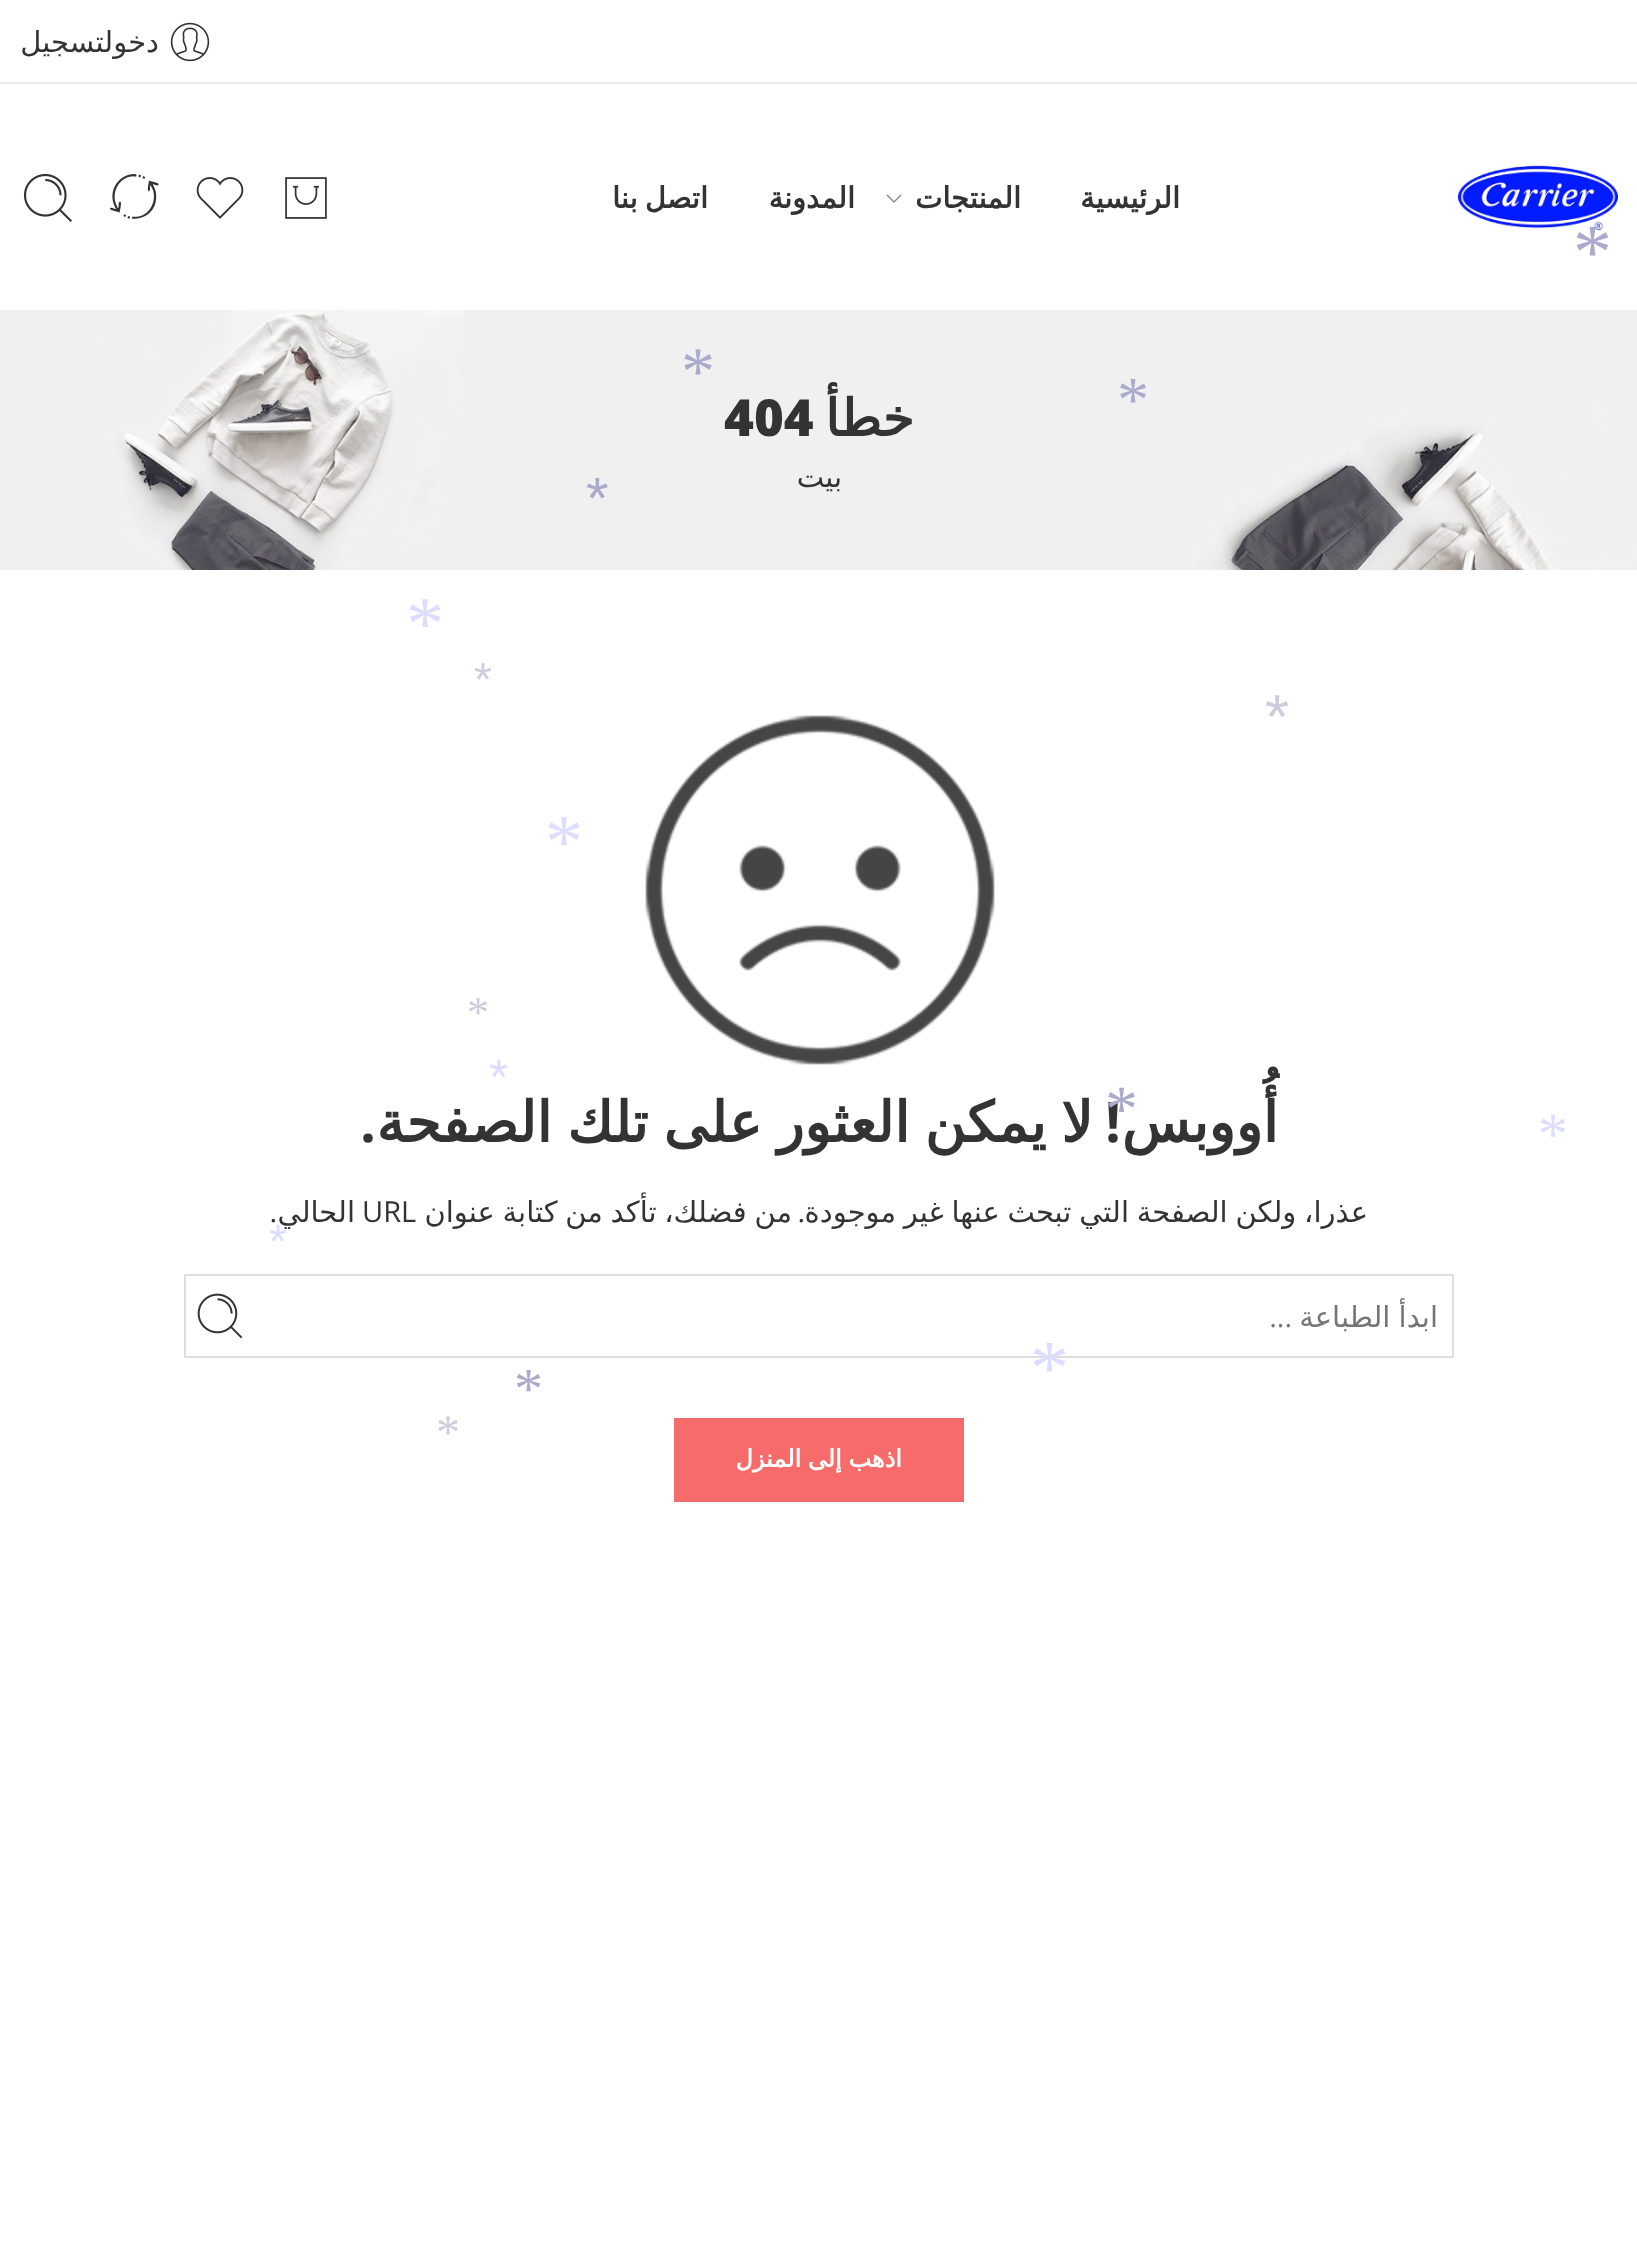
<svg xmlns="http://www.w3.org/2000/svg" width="1637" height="2265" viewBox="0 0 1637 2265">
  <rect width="100%" height="100%" fill="#fff"/>
  <path d="M0 82h1637v2H0z" fill="#ececec"/>
  <image x="170" y="22" width="40" height="40" href="img/1.png"/>
  <image x="1458" y="165" width="160" height="65" href="img/2.png"/>
  <image x="886" y="194" width="16" height="9" href="img/3.png"/>
  <image x="285" y="177" width="42" height="42" href="img/4.png"/>
  <image x="196" y="177" width="48" height="42" href="img/5.png"/>
  <image x="110" y="174" width="49" height="45" href="img/6.png"/>
  <image x="23" y="173" width="49" height="49" href="img/7.png"/>
  <image x="0" y="310" width="1637" height="260" href="img/8.png"/>
  <image x="645" y="715" width="350" height="350" href="img/9.png"/>
  <path d="M185 1275h1268v82H185z" fill="none" stroke="#dedede" stroke-width="2"/>
  <image x="197" y="1293" width="46" height="46" href="img/10.png"/>
  <path d="M674 1418h290v84H674z" fill="#f76b6a"/>
  <text x="159" y="52" font-family="DejaVu Sans" font-size="29" direction="rtl" fill="#333">دخولتسجيل</text>
  <g font-family="DejaVu Sans" font-size="29" font-weight="bold" direction="rtl" fill="#333">
    <text x="1180" y="208">الرئيسية</text>
    <text x="1021" y="208">المنتجات</text>
    <text x="855" y="208">المدونة</text>
    <text x="708" y="208" word-spacing="-2">اتصل بنا</text>
  </g>
  <text x="914" y="436" font-family="DejaVu Sans" font-size="51" font-weight="bold" direction="rtl" fill="#333">خطأ</text>
  <text x="724" y="436" font-family="Open Sans" font-size="51" font-weight="800" fill="#333">404</text>
  <text x="842" y="487" font-family="DejaVu Sans" font-size="29" direction="rtl" fill="#333">بيت</text>
  <text x="1278" y="1142" font-family="DejaVu Sans" font-size="56" font-weight="bold" direction="rtl" fill="#333">أُووبس</text>
  <text x="1121" y="1142" font-family="Open Sans" font-size="56" font-weight="bold" direction="rtl" fill="#333">!</text>
  <text x="1093" y="1142" word-spacing="-2.75" font-family="DejaVu Sans" font-size="56" font-weight="bold" direction="rtl" fill="#333">لا يمكن العثور على تلك الصفحة</text>
  <text x="376" y="1142" font-family="Open Sans" font-size="56" font-weight="bold" direction="rtl" fill="#333">.</text>
  <text x="1368" y="1222" word-spacing="-1.5" font-family="DejaVu Sans" font-size="29" direction="rtl" fill="#333">عذرا، ولكن الصفحة التي تبحث عنها غير موجودة</text>
  <text x="805" y="1222" font-family="Open Sans" font-size="29" direction="rtl" fill="#333">.</text>
  <text x="792" y="1222" word-spacing="-1.5" font-family="DejaVu Sans" font-size="29" direction="rtl" fill="#333">من فضلك، تأكد من كتابة عنوان</text>
  <text x="362" y="1222" font-family="Open Sans" font-size="29" fill="#333">URL</text>
  <text x="355" y="1222" font-family="DejaVu Sans" font-size="29" direction="rtl" fill="#333">الحالي</text>
  <text x="277" y="1222" font-family="Open Sans" font-size="29" direction="rtl" fill="#333">.</text>
  <text x="1438" y="1327" word-spacing="-1" font-family="DejaVu Sans" font-size="29" direction="rtl" fill="#757575">ابدأ الطباعة</text>
  <text x="1292" y="1327" font-family="Open Sans" font-size="29" direction="rtl" fill="#757575">...</text>
  <text x="902" y="1467" word-spacing="-1" font-family="DejaVu Sans" font-size="24" font-weight="bold" direction="rtl" fill="#fff">اذهب إلى المنزل</text>
  <text x="1573" y="278" font-family="Liberation Serif" font-size="78" fill="#aac">*</text>
  <text x="681" y="394" font-family="Liberation Serif" font-size="68" fill="#aac">*</text>
  <text x="1117" y="421" font-family="Liberation Serif" font-size="64" fill="#aac">*</text>
  <text x="586" y="518" font-family="Liberation Sans" font-size="58" fill="#aac">*</text>
  <text x="406" y="649" font-family="Liberation Serif" font-size="76" fill="#ddf">*</text>
  <text x="474" y="695" font-family="Liberation Sans" font-size="46" fill="#ccd">*</text>
  <text x="1265" y="738" font-family="Liberation Sans" font-size="62" fill="#ccd">*</text>
  <text x="545" y="867" font-family="Liberation Serif" font-size="76" fill="#ddf">*</text>
  <text x="467" y="1027" font-family="Liberation Serif" font-size="44" fill="#ccd">*</text>
  <text x="489" y="1094" font-family="Liberation Sans" font-size="50" fill="#ddf">*</text>
  <text x="1105" y="1131" font-family="Liberation Serif" font-size="66" fill="#aac">*</text>
  <text x="1538" y="1154" font-family="Liberation Serif" font-size="60" fill="#ddf">*</text>
  <text x="269" y="1257" font-family="Liberation Sans" font-size="46" fill="#ddf">*</text>
  <text x="1030" y="1394" font-family="Liberation Serif" font-size="78" fill="#ddf">*</text>
  <text x="514" y="1408" font-family="Liberation Serif" font-size="58" fill="#aac">*</text>
  <text x="436" y="1448" font-family="Liberation Serif" font-size="48" fill="#ccd">*</text>
</svg>
